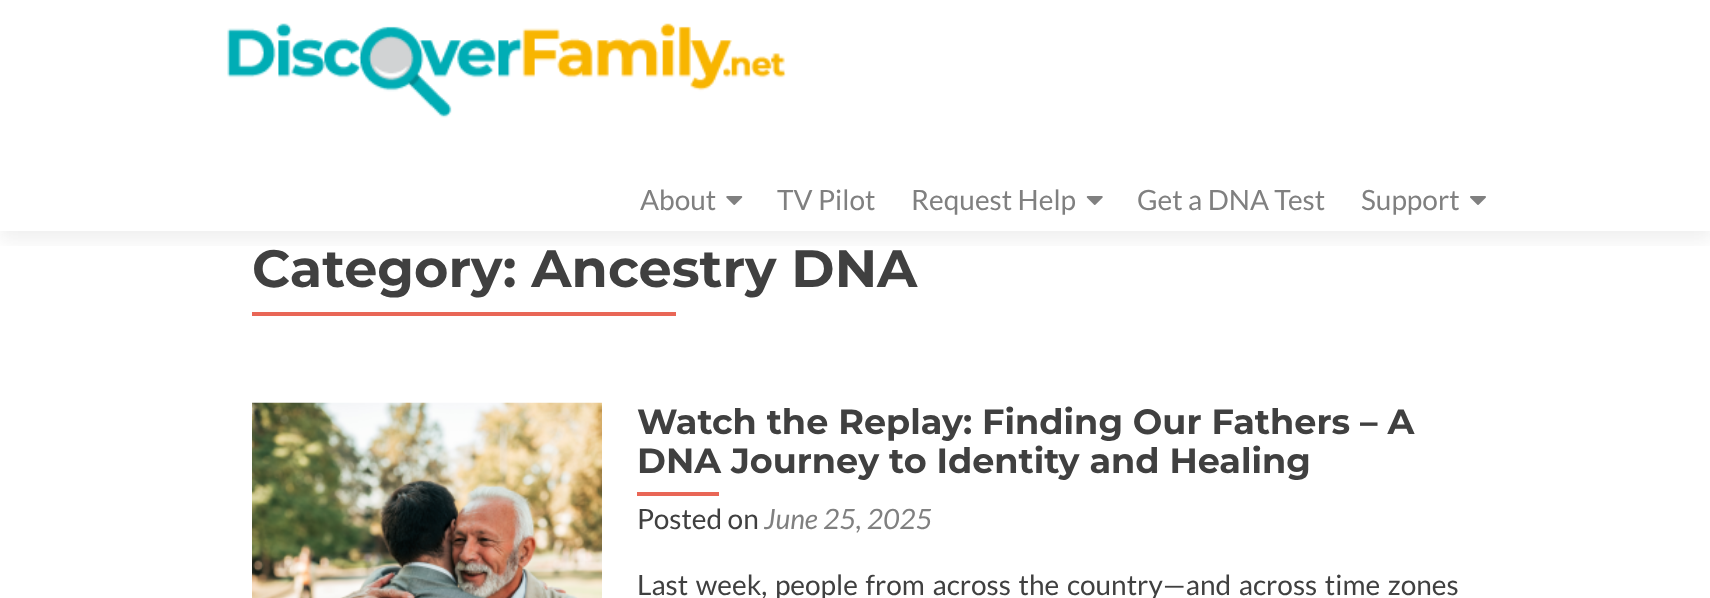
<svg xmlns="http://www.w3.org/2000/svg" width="1710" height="598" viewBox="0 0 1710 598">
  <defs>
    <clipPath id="clip1"><path d="M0 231h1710v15H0z"/></clipPath>
  </defs>
  <rect width="100%" height="100%" fill="#fff"/>
  <g clip-path="url(#clip1)">
    <path d="M0 9h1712v231H0z" fill="#32323214" filter="blur(9.5px)"/>
  </g>
  <image x="227" y="23" width="559" height="95" href="img/1.png"/>
  <image x="726" y="196" width="17" height="9" href="img/2.png"/>
  <image x="1086" y="196" width="17" height="9" href="img/3.png"/>
  <image x="1470" y="196" width="16" height="9" href="img/4.png"/>
  <path d="M252 312h424v4H252z" fill="#e96656"/>
  <image x="252" y="402" width="350" height="196" href="img/5.png"/>
  <path d="M637 492h82v4H637z" fill="#e96656"/>
  <g font-family="Lato" font-size="28" fill="#808080">
    <text x="640" y="210">About</text>
    <text x="777" y="210">TV Pilot</text>
    <text x="911" y="210">Request Help</text>
    <text x="1137" y="210">Get a DNA Test</text>
    <text x="1361" y="210">Support</text>
  </g>
  <text x="252" y="287" font-family="Montserrat" font-size="52.5" font-weight="100" fill="#404040">Category: Ancestry DNA</text>
  <g font-family="Montserrat" font-size="35" font-weight="100" fill="#404040">
    <text x="637" y="434">Watch the Replay: Finding Our Fathers – A</text>
    <text x="637" y="473">DNA Journey to Identity and Healing</text>
  </g>
  <text x="637" y="529" font-family="Lato" font-size="28" fill="#404040">Posted on</text>
  <text x="764" y="529" font-family="Lato" font-size="28" font-style="italic" fill="#808080">June 25, 2025</text>
  <text x="637" y="595" word-spacing="2.25" font-family="Lato" font-size="28" fill="#404040">Last week, people from across the country—and across time zones</text>
</svg>
